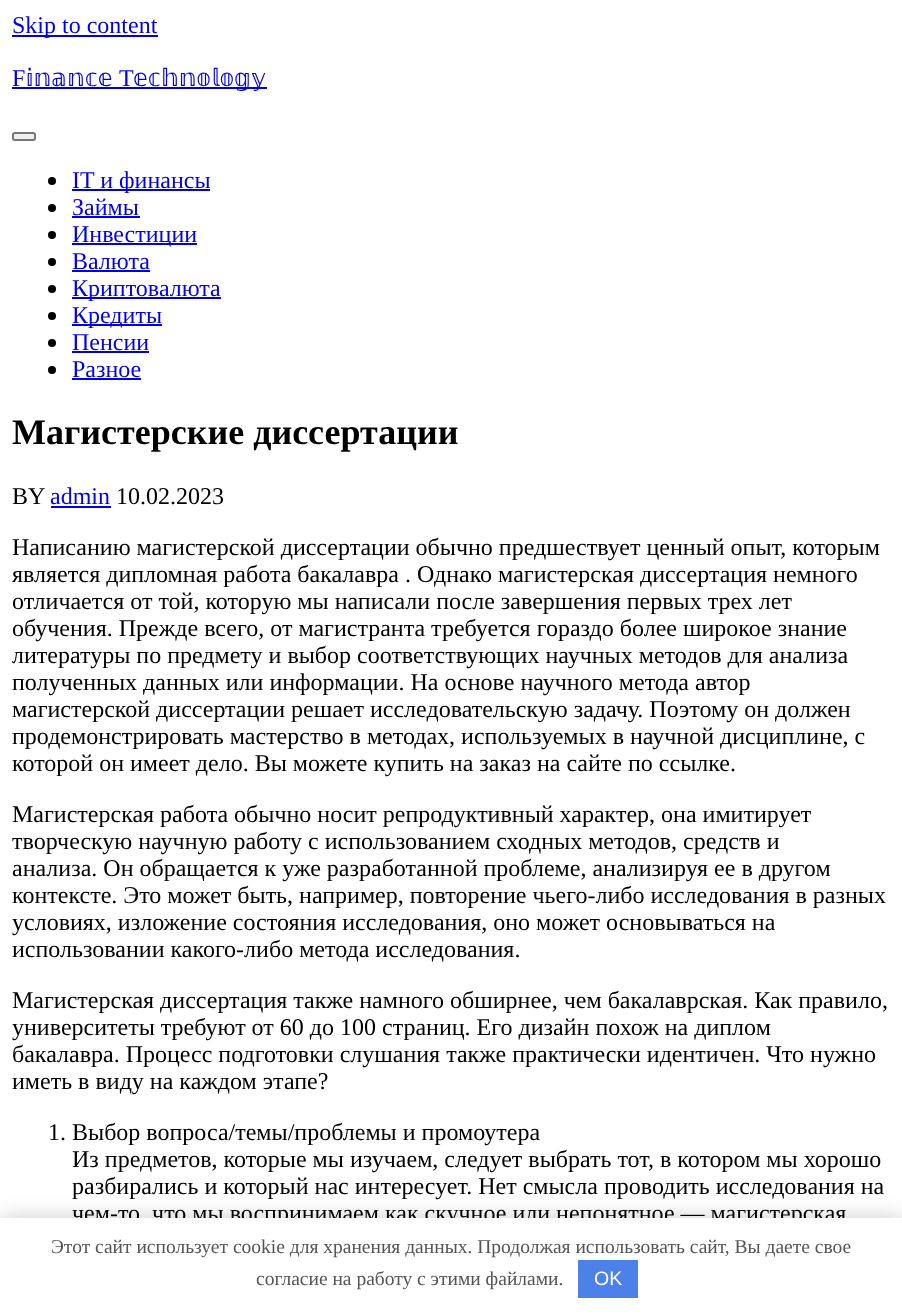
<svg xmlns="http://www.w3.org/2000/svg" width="902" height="1315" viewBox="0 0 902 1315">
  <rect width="100%" height="100%" fill="#fff"/>
  <path d="M12 35h146v2H12z" fill="#00e"/>
  <path d="M12 87h255v2H12z" fill="#00e"/>
  <rect x="13" y="133" width="22" height="7" rx="2" fill="#efefef" stroke="#767676" stroke-width="2"/>
  <circle cx="52" cy="181" r="4" fill="#000"/>
  <path d="M72 189h138v2H72z" fill="#00e"/>
  <circle cx="52" cy="208" r="4" fill="#000"/>
  <path d="M72 216h68v2H72z" fill="#00e"/>
  <circle cx="52" cy="235" r="4" fill="#000"/>
  <path d="M72 243h125v2H72z" fill="#00e"/>
  <circle cx="52" cy="262" r="4" fill="#000"/>
  <path d="M72 270h78v2H72z" fill="#00e"/>
  <circle cx="52" cy="289" r="4" fill="#000"/>
  <path d="M72 297h149v2H72z" fill="#00e"/>
  <circle cx="52" cy="316" r="4" fill="#000"/>
  <path d="M72 324h90v2H72z" fill="#00e"/>
  <circle cx="52" cy="343" r="4" fill="#000"/>
  <path d="M72 351h77v2H72z" fill="#00e"/>
  <circle cx="52" cy="370" r="4" fill="#000"/>
  <path d="M72 378h69v2H72z" fill="#00e"/>
  <path d="M51 506h60v2H51z" fill="#00e"/>
  <path d="M0 1218h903v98H0z" fill="#00000033" filter="blur(11px)"/>
  <g font-family="Liberation Serif" font-size="24" fill="#00e">
    <text x="12" y="33">Skip to content</text>
    <text x="12" y="86">F</text>
  </g>
  <text x="25" y="86" font-family="DejaVu Sans" font-size="24" fill="#00e">𝕚𝕟𝕒𝕟𝕔𝕖</text>
  <text x="119" y="86" font-family="Liberation Serif" font-size="24" fill="#00e">T</text>
  <text x="133" y="86" font-family="DejaVu Sans" font-size="24" fill="#00e">𝕖𝕔𝕙𝕟𝕠𝕝𝕠𝕘𝕪</text>
  <g font-family="Liberation Serif" font-size="24" fill="#00e">
    <text x="72" y="188">IT и финансы</text>
    <text x="72" y="215">Займы</text>
    <text x="72" y="242">Инвестиции</text>
    <text x="72" y="269">Валюта</text>
    <text x="72" y="296">Криптовалюта</text>
    <text x="72" y="323">Кредиты</text>
    <text x="72" y="350">Пенсии</text>
    <text x="72" y="377">Разное</text>
  </g>
  <text x="12" y="444" font-family="Liberation Serif" font-size="36" font-weight="bold" fill="#000">Магистерские диссертации</text>
  <text x="12" y="504" font-family="Liberation Serif" font-size="24" fill="#000">BY</text>
  <text x="50" y="504" font-family="Liberation Serif" font-size="24" fill="#00e">admin</text>
  <g font-family="Liberation Serif" font-size="24" fill="#000">
    <text x="116" y="504">10.02.2023</text>
    <text x="12" y="555">Написанию магистерской диссертации обычно предшествует ценный опыт, которым</text>
    <text x="12" y="582">является дипломная работа бакалавра . Однако магистерская диссертация немного</text>
    <text x="12" y="609">отличается от той, которую мы написали после завершения первых трех лет</text>
    <text x="12" y="636">обучения. Прежде всего, от магистранта требуется гораздо более широкое знание</text>
    <text x="12" y="663">литературы по предмету и выбор соответствующих научных методов для анализа</text>
    <text x="12" y="690">полученных данных или информации. На основе научного метода автор</text>
    <text x="12" y="717">магистерской диссертации решает исследовательскую задачу. Поэтому он должен</text>
    <text x="12" y="744">продемонстрировать мастерство в методах, используемых в научной дисциплине, с</text>
    <text x="12" y="771">которой он имеет дело. Вы можете купить на заказ на сайте по ссылке.</text>
    <text x="12" y="822">Магистерская работа обычно носит репродуктивный характер, она имитирует</text>
    <text x="12" y="849">творческую научную работу с использованием сходных методов, средств и</text>
    <text x="12" y="876">анализа. Он обращается к уже разработанной проблеме, анализируя ее в другом</text>
    <text x="12" y="903">контексте. Это может быть, например, повторение чьего-либо исследования в разных</text>
    <text x="12" y="930">условиях, изложение состояния исследования, оно может основываться на</text>
    <text x="12" y="957">использовании какого-либо метода исследования.</text>
    <text x="12" y="1008">Магистерская диссертация также намного обширнее, чем бакалаврская. Как правило,</text>
    <text x="12" y="1035">университеты требуют от 60 до 100 страниц. Его дизайн похож на диплом</text>
    <text x="12" y="1062">бакалавра. Процесс подготовки слушания также практически идентичен. Что нужно</text>
    <text x="12" y="1089">иметь в виду на каждом этапе?</text>
    <text x="48" y="1140">1. Выбор вопроса/темы/проблемы и промоутера</text>
    <text x="72" y="1167">Из предметов, которые мы изучаем, следует выбрать тот, в котором мы хорошо</text>
    <text x="72" y="1194">разбирались и который нас интересует. Нет смысла проводить исследования на</text>
    <text x="72" y="1221">чем-то, что мы воспринимаем как скучное или непонятное — магистерская</text>
  </g>
  <path d="M0 1218h902v97H0z" fill="#fff"/>
  <g font-family="Liberation Serif" font-size="19.5" fill="#555">
    <text x="51" y="1253">Этот сайт использует cookie для хранения данных. Продолжая использовать сайт, Вы даете свое</text>
    <text x="256" y="1285">согласие на работу с этими файлами.</text>
  </g>
  <path d="M578 1260h60v38H578z" fill="#4b81e8"/>
  <text x="594" y="1285" font-family="Liberation Sans" font-size="19.5" fill="#fff">OK</text>
</svg>
